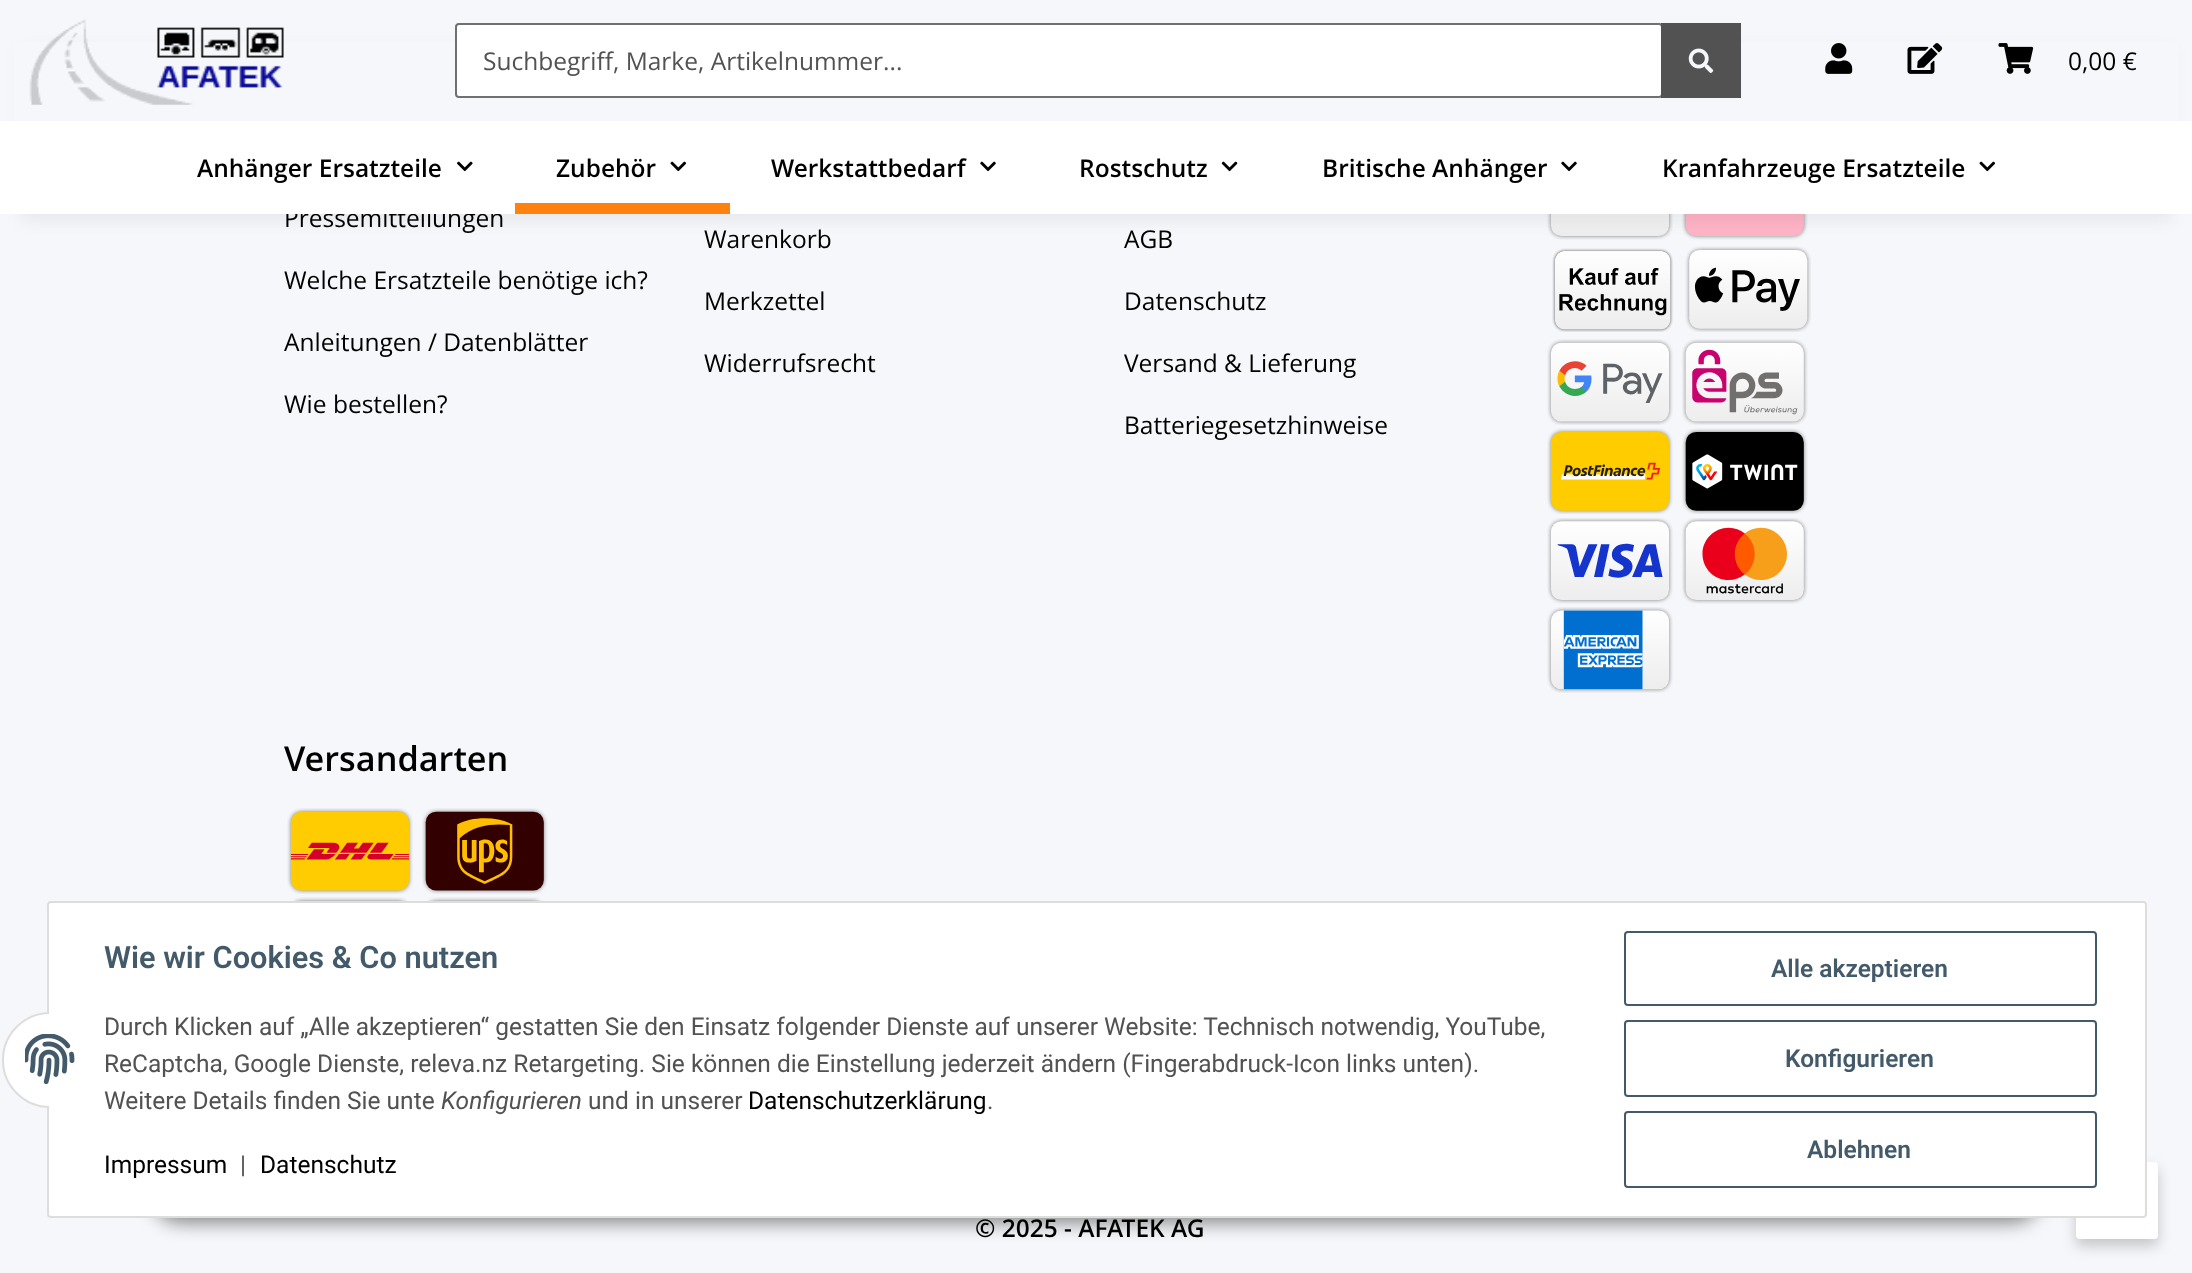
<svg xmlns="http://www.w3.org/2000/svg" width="2192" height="1273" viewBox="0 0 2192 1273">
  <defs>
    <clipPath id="clip1"><path d="M1323 149h224v37H1323z"/></clipPath>
  </defs>
  <rect width="100%" height="100%" fill="#f5f7fa"/>
  <image x="1547" y="214" width="126" height="26" href="img/10.png"/>
  <image x="1682" y="214" width="126" height="26" href="img/11.png"/>
  <path d="M21 49h2151v172H21z" fill="#0000000f" filter="blur(8px)"/>
  <path d="M14 42h2165v79H14z" fill="#f5f7fa"/>
  <image x="29" y="19" width="255" height="86" href="img/1.png"/>
  <rect x="456" y="24" width="1206" height="73" rx="3" fill="#fff" stroke="#707070" stroke-width="2"/>
  <path d="M1661 23h80v75H1661z" fill="#525252"/>
  <image x="1688" y="48" width="26" height="25" href="img/2.png"/>
  <image x="1825" y="43" width="28" height="31" href="img/3.png"/>
  <image x="1907" y="43" width="36" height="31" href="img/4.png"/>
  <image x="1998" y="43" width="36" height="31" href="img/5.png"/>
  <image x="1552" y="248" width="121" height="84" href="img/12.png"/>
  <image x="1685" y="246" width="126" height="86" href="img/13.png"/>
  <image x="1547" y="339" width="126" height="86" href="img/14.png"/>
  <image x="1682" y="339" width="126" height="86" href="img/15.png"/>
  <image x="1547" y="428" width="126" height="86" href="img/16.png"/>
  <image x="1682" y="428" width="126" height="86" href="img/17.png"/>
  <image x="1547" y="518" width="126" height="86" href="img/18.png"/>
  <image x="1682" y="518" width="126" height="86" href="img/19.png"/>
  <image x="1547" y="607" width="126" height="86" href="img/20.png"/>
  <image x="287" y="808" width="126" height="86" href="img/21.png"/>
  <image x="422" y="808" width="126" height="86" href="img/22.png"/>
  <image x="293" y="897" width="114" height="4" href="img/23.png"/>
  <image x="428" y="897" width="114" height="4" href="img/24.png"/>
  <rect x="2076" y="1169" width="82" height="77" rx="4" fill="#00000033" filter="blur(7px)"/>
  <rect x="2076" y="1162" width="82" height="77" rx="4" fill="#fff"/>
  <rect x="152" y="1167" width="1889" height="56" rx="28" fill="#00000073" filter="blur(9px)"/>
  <rect x="48" y="902" width="2098" height="315" rx="3" fill="#fff" stroke="#ddd" stroke-width="2"/>
  <circle cx="50" cy="1060" r="47" fill="#fff" stroke="#ddd" stroke-width="2"/>
  <path d="M49 1012h49v96H49z" fill="#fff"/>
  <image x="25" y="1034" width="50" height="51" href="img/25.png"/>
  <rect x="1625" y="932" width="471" height="73" rx="3" fill="none" stroke="#435a6b" stroke-width="2"/>
  <rect x="1625" y="1021" width="471" height="75" rx="3" fill="none" stroke="#435a6b" stroke-width="2"/>
  <rect x="1625" y="1112" width="471" height="75" rx="3" fill="none" stroke="#435a6b" stroke-width="2"/>
  <text x="483" y="70" font-family="Open Sans" font-size="24.5" fill="#525252">Suchbegriff, Marke, Artikelnummer...</text>
  <g font-family="Open Sans" font-size="24.5" fill="#000">
    <text x="2068" y="70">0,00 €</text>
    <text x="284" y="227">Pressemitteilungen</text>
  </g>
  <path d="M0 121h2192v93H0z" fill="#fff"/>
  <image x="1979" y="161" width="17" height="11" href="img/7.png"/>
  <text x="1662" y="177" font-family="Open Sans" font-size="24.5" font-weight="600" fill="#000">Kranfahrzeuge Ersatzteile</text>
  <image x="1561" y="161" width="16" height="11" href="img/8.png"/>
  <g clip-path="url(#clip1)">
    <text x="1322" y="177" font-family="Open Sans" font-size="24.5" font-weight="600" fill="#000">Britische Anhänger</text>
  </g>
  <image x="1221" y="161" width="17" height="11" href="img/9.png"/>
  <text x="1079" y="177" font-family="Open Sans" font-size="24.5" font-weight="600" fill="#000">Rostschutz</text>
  <image x="980" y="161" width="16" height="11" href="img/8.png"/>
  <text x="771" y="177" font-family="Open Sans" font-size="24.5" font-weight="600" fill="#000">Werkstattbedarf</text>
  <image x="670" y="161" width="17" height="11" href="img/7.png"/>
  <path d="M515 203h215v11H515z" fill="#ff820f"/>
  <text x="556" y="177" font-family="Open Sans" font-size="24.5" font-weight="600" fill="#000">Zubehör</text>
  <image x="457" y="161" width="16" height="11" href="img/6.png"/>
  <text x="197" y="177" font-family="Open Sans" font-size="24.5" font-weight="600" fill="#000">Anhänger Ersatzteile</text>
  <g font-family="Open Sans" font-size="24.5" fill="#000">
    <text x="284" y="289">Welche Ersatzteile benötige ich?</text>
    <text x="284" y="351">Anleitungen / Datenblätter</text>
    <text x="284" y="413">Wie bestellen?</text>
    <text x="704" y="248">Warenkorb</text>
    <text x="704" y="310">Merkzettel</text>
    <text x="704" y="372">Widerrufsrecht</text>
    <text x="1124" y="248">AGB</text>
    <text x="1124" y="310">Datenschutz</text>
    <text x="1124" y="372">Versand &amp; Lieferung</text>
    <text x="1124" y="434">Batteriegesetzhinweise</text>
  </g>
  <text x="284" y="771" font-family="Open Sans" font-size="34.25" font-weight="600" fill="#000">Versandarten</text>
  <text x="975" y="1237" font-family="Open Sans" font-size="24.5" font-weight="600" fill="#000">© 2025 - AFATEK AG</text>
  <text x="104" y="968" font-family="Roboto" font-size="30.75" font-weight="600" fill="#435a6b">Wie wir Cookies &amp; Co nutzen</text>
  <g font-family="Roboto" font-size="24.5" fill="#525252">
    <text x="104" y="1035">Durch Klicken auf „Alle akzeptieren“ gestatten Sie den Einsatz folgender Dienste auf unserer Website: Technisch notwendig, YouTube,</text>
    <text x="104" y="1072">ReCaptcha, Google Dienste, releva.nz Retargeting. Sie können die Einstellung jederzeit ändern (Fingerabdruck-Icon links unten).</text>
    <text x="104" y="1109">Weitere Details finden Sie unte</text>
  </g>
  <text x="441" y="1109" font-family="Roboto" font-size="24.5" font-style="italic" fill="#525252">Konfigurieren</text>
  <text x="588" y="1109" font-family="Roboto" font-size="24.5" fill="#525252">und in unserer</text>
  <text x="748" y="1109" font-family="Roboto" font-size="24.5" fill="#000">Datenschutzerklärung</text>
  <text x="987" y="1109" font-family="Roboto" font-size="24.5" fill="#525252">.</text>
  <text x="104" y="1173" font-family="Roboto" font-size="24.5" fill="#000">Impressum</text>
  <text x="240" y="1173" font-family="Roboto" font-size="24.5" fill="#525252">|</text>
  <text x="260" y="1173" font-family="Roboto" font-size="24.5" fill="#000">Datenschutz</text>
  <g font-family="Roboto" font-size="24.5" font-weight="600" fill="#435a6b">
    <text x="1771" y="977">Alle akzeptieren</text>
    <text x="1785" y="1067">Konfigurieren</text>
    <text x="1807" y="1158">Ablehnen</text>
  </g>
</svg>
